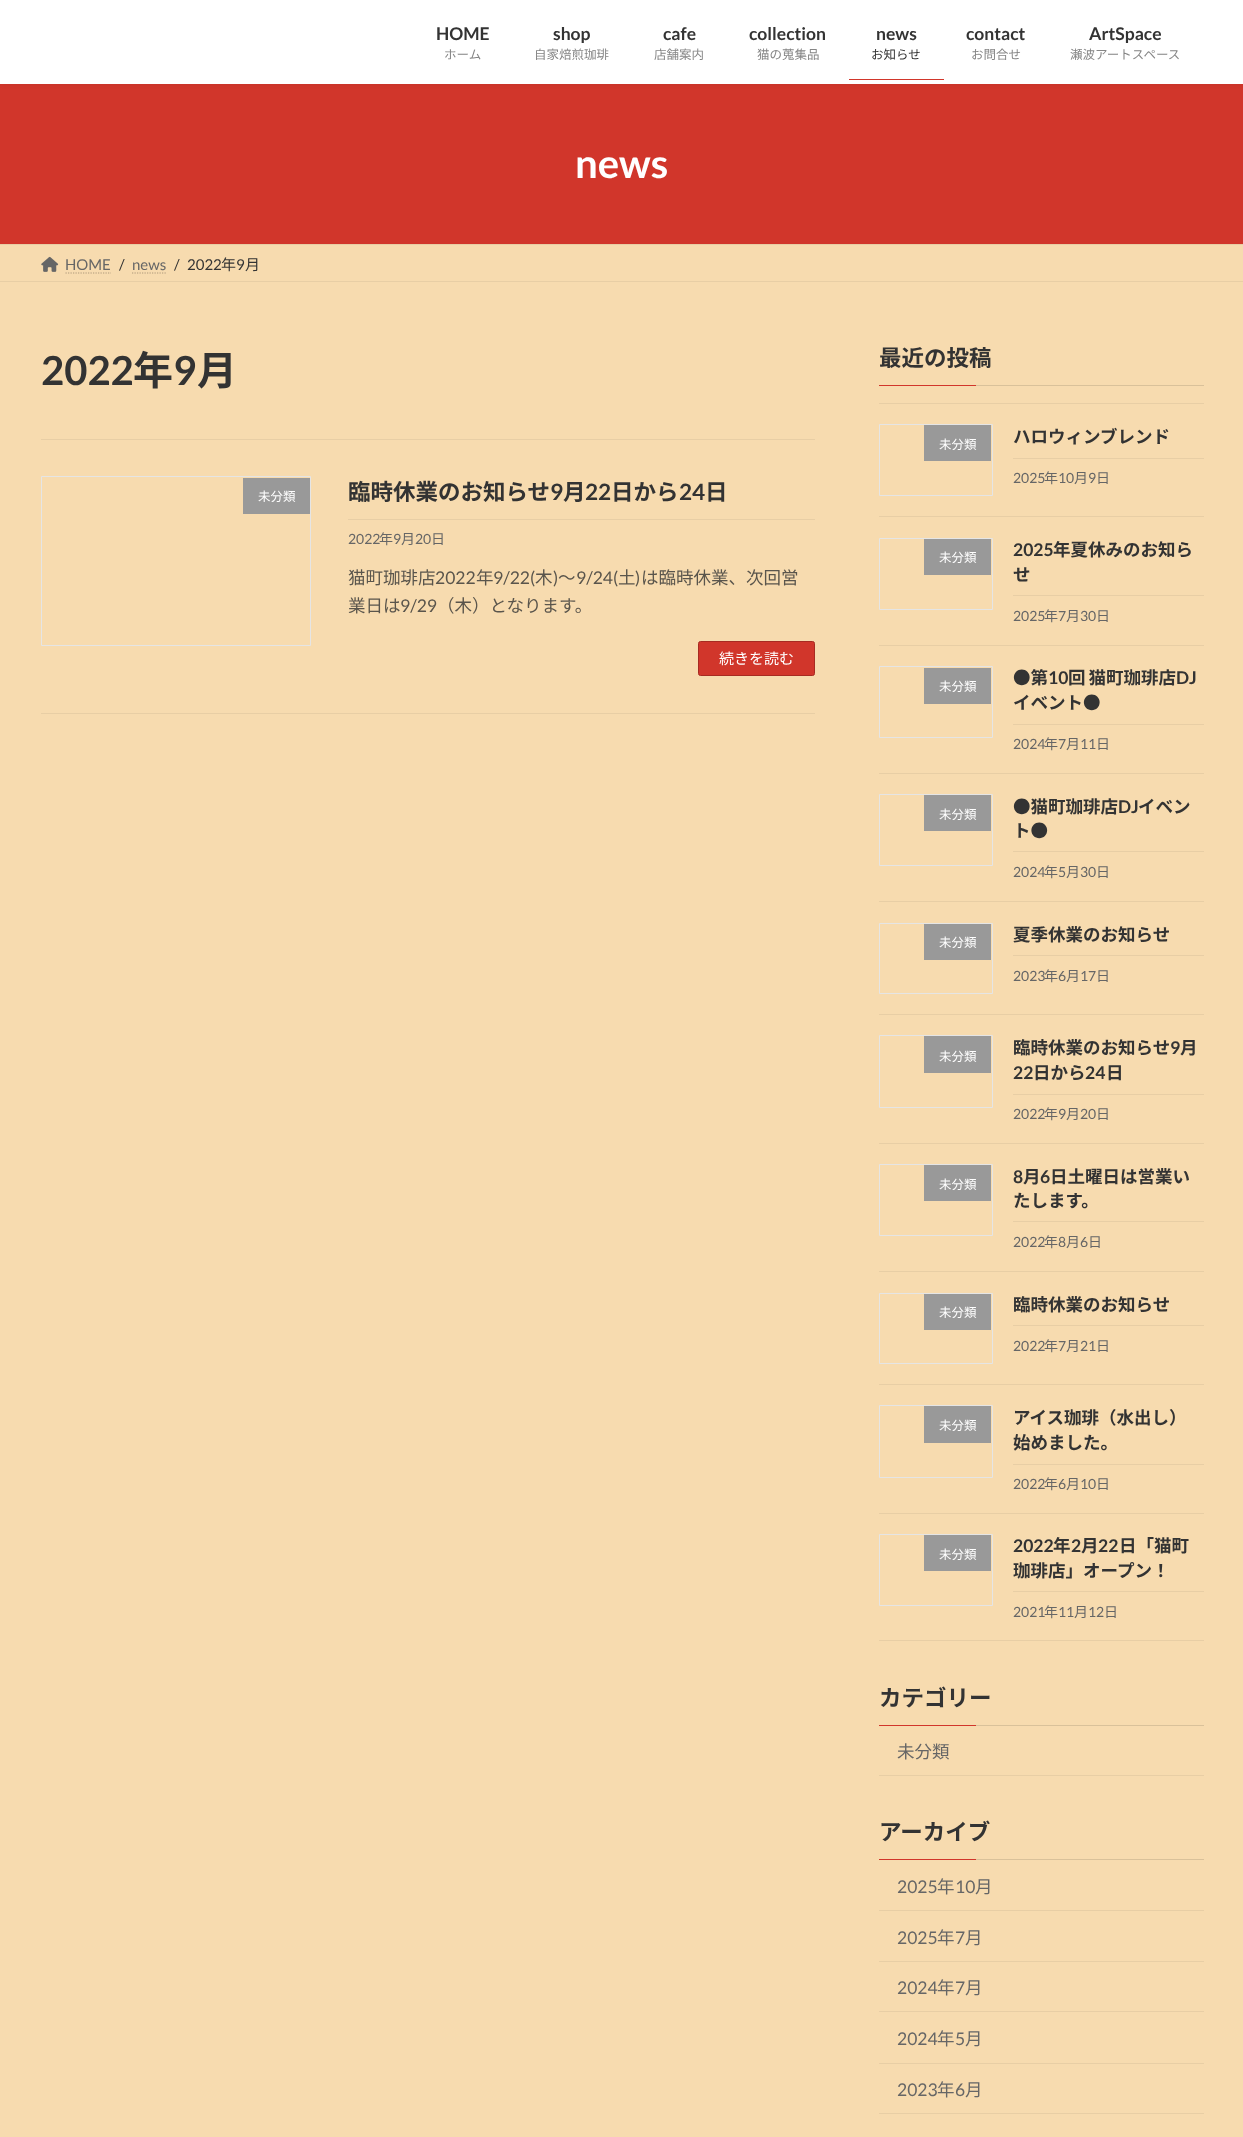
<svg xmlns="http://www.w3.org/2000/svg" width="1243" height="2137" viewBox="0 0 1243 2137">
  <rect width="100%" height="100%" fill="#f7dbaf"/>
  <path d="M0 84h1243v160H0z" fill="#d1362b"/>
  <path d="M0 1h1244v84H0z" fill="#0000000d" filter="blur(2px)"/>
  <path d="M0 0h1243v84H0z" fill="#fff"/>
  <path d="M849 79h95v1H849z" fill="#d1362b"/>
  <path d="M0 244h1243v1H0z" fill="#e8cea5"/>
  <path d="M0 281h1243v1H0z" fill="#e8cea5"/>
  <image x="41" y="256" width="18" height="16" href="img/1.png"/>
  <path d="M65.5 273H111" fill="none" stroke="#ad997b" stroke-width="1.2" stroke-dasharray="1.25 1.25"/>
  <path d="M132 273H166" fill="none" stroke="#ad997b" stroke-width="1.2" stroke-dasharray="1.25 1.25"/>
  <path d="M41 439h774v1H41z" fill="#e8cea5"/>
  <path d="M41 713h774v1H41z" fill="#e8cea5"/>
  <path d="M41.5 476.5h269v169H41.5z" fill="none" stroke="#e5e5e5"/>
  <path d="M243 478h67v36H243z" fill="#999"/>
  <path d="M348 519h467v1H348z" fill="#e8cea5"/>
  <rect x="698.5" y="641.5" width="116" height="34" rx="2" fill="#d1362b" stroke="#a72b22"/>
  <path d="M976 385h228v1H976z" fill="#d9c19a"/>
  <path d="M879 385h97v1H879z" fill="#d1362b"/>
  <path d="M879 403h325v1H879z" fill="#e8cea5"/>
  <path d="M879 516h325v1H879z" fill="#e8cea5"/>
  <path d="M879.5 424.5h113v71H879.5z" fill="none" stroke="#e5e5e5"/>
  <path d="M924 425h67v36H924z" fill="#999"/>
  <path d="M1013 458h191v1H1013z" fill="#e8cea5"/>
  <path d="M879 645h325v1H879z" fill="#e8cea5"/>
  <path d="M879.5 538.5h113v71H879.5z" fill="none" stroke="#e5e5e5"/>
  <path d="M924 539h67v36H924z" fill="#999"/>
  <path d="M1013 595h191v1H1013z" fill="#e8cea5"/>
  <path d="M879 773h325v1H879z" fill="#e8cea5"/>
  <path d="M879.5 666.5h113v71H879.5z" fill="none" stroke="#e5e5e5"/>
  <path d="M924 668h67v36H924z" fill="#999"/>
  <path d="M1013 724h191v1H1013z" fill="#e8cea5"/>
  <path d="M879 901h325v1H879z" fill="#e8cea5"/>
  <path d="M879.5 794.5h113v71H879.5z" fill="none" stroke="#e5e5e5"/>
  <path d="M924 795h67v36H924z" fill="#999"/>
  <path d="M1013 851h191v1H1013z" fill="#e8cea5"/>
  <path d="M879 1014h325v1H879z" fill="#e8cea5"/>
  <path d="M879.5 923.5h113v70H879.5z" fill="none" stroke="#e5e5e5"/>
  <path d="M924 924h67v36H924z" fill="#999"/>
  <path d="M1013 955h191v1H1013z" fill="#e8cea5"/>
  <path d="M879 1143h325v1H879z" fill="#e8cea5"/>
  <path d="M879.5 1035.5h113v72H879.5z" fill="none" stroke="#e5e5e5"/>
  <path d="M924 1036h67v37H924z" fill="#999"/>
  <path d="M1013 1094h191v1H1013z" fill="#e8cea5"/>
  <path d="M879 1271h325v1H879z" fill="#e8cea5"/>
  <path d="M879.5 1164.5h113v71H879.5z" fill="none" stroke="#e5e5e5"/>
  <path d="M924 1165h67v36H924z" fill="#999"/>
  <path d="M1013 1221h191v1H1013z" fill="#e8cea5"/>
  <path d="M879 1384h325v1H879z" fill="#e8cea5"/>
  <path d="M879.5 1293.5h113v70H879.5z" fill="none" stroke="#e5e5e5"/>
  <path d="M924 1294h67v36H924z" fill="#999"/>
  <path d="M1013 1325h191v1H1013z" fill="#e8cea5"/>
  <path d="M879 1513h325v1H879z" fill="#e8cea5"/>
  <path d="M879.5 1405.5h113v72H879.5z" fill="none" stroke="#e5e5e5"/>
  <path d="M924 1406h67v37H924z" fill="#999"/>
  <path d="M1013 1464h191v1H1013z" fill="#e8cea5"/>
  <path d="M879 1640h325v1H879z" fill="#e8cea5"/>
  <path d="M879.5 1534.5h113v71H879.5z" fill="none" stroke="#e5e5e5"/>
  <path d="M924 1535h67v36H924z" fill="#999"/>
  <path d="M1013 1591h191v1H1013z" fill="#e8cea5"/>
  <path d="M976 1725h228v1H976z" fill="#d9c19a"/>
  <path d="M879 1725h97v1H879z" fill="#d1362b"/>
  <path d="M879 1775h325v1H879z" fill="#e8cea5"/>
  <path d="M976 1859h228v1H976z" fill="#d9c19a"/>
  <path d="M879 1859h97v1H879z" fill="#d1362b"/>
  <path d="M879 1910h325v1H879z" fill="#e8cea5"/>
  <path d="M879 1961h325v1H879z" fill="#e8cea5"/>
  <path d="M879 2011h325v1H879z" fill="#e8cea5"/>
  <path d="M879 2063h325v1H879z" fill="#e8cea5"/>
  <path d="M879 2113h325v1H879z" fill="#e8cea5"/>
  <text x="436" y="40" font-family="Lato" font-size="17.5" font-weight="bold" fill="#333">HOME</text>
  <text x="444" y="59" font-family="Noto Sans JP" font-size="12.5" fill="#858585">ホーム</text>
  <text x="553" y="40" font-family="Lato" font-size="17.5" font-weight="bold" fill="#333">shop</text>
  <text x="534" y="59" font-family="Noto Sans JP" font-size="12.5" fill="#858585">自家焙煎珈琲</text>
  <text x="663" y="40" font-family="Lato" font-size="17.5" font-weight="bold" fill="#333">cafe</text>
  <text x="654" y="59" font-family="Noto Sans JP" font-size="12.5" fill="#858585">店舗案内</text>
  <text x="749" y="40" font-family="Lato" font-size="17.5" font-weight="bold" fill="#333">collection</text>
  <text x="757" y="59" font-family="Noto Sans JP" font-size="12.5" fill="#858585">猫の蒐集品</text>
  <text x="876" y="40" font-family="Lato" font-size="17.5" font-weight="bold" fill="#333">news</text>
  <text x="871" y="59" font-family="Noto Sans JP" font-size="12.5" fill="#333">お知らせ</text>
  <text x="966" y="40" font-family="Lato" font-size="17.5" font-weight="bold" fill="#333">contact</text>
  <text x="971" y="59" font-family="Noto Sans JP" font-size="12.5" fill="#858585">お問合せ</text>
  <text x="1089" y="40" font-family="Lato" font-size="17.5" font-weight="bold" fill="#333">ArtSpace</text>
  <text x="1070" y="59" font-family="Noto Sans JP" font-size="12.5" fill="#858585">瀬波アートスペース</text>
  <text x="575" y="178" font-family="Lato" font-size="40" font-weight="bold" fill="#fff">news</text>
  <text x="65" y="270" font-family="Lato" font-size="15" fill="#666">HOME</text>
  <text x="119" y="270" font-family="Lato" font-size="15" fill="#333">/</text>
  <text x="132" y="270" font-family="Lato" font-size="15" fill="#666">news</text>
  <g font-family="Lato" font-size="15" fill="#333">
    <text x="174" y="270">/</text>
    <text x="187" y="270">2022</text>
  </g>
  <text x="221" y="270" font-family="Noto Sans JP" font-size="15" fill="#333">年</text>
  <text x="236" y="270" font-family="Lato" font-size="15" fill="#333">9</text>
  <text x="245" y="270" font-family="Noto Sans JP" font-size="15" fill="#333">月</text>
  <text x="41" y="385" font-family="Lato" font-size="40" font-weight="bold" fill="#333">2022</text>
  <text x="133" y="385" font-family="Noto Sans JP" font-size="40" font-weight="bold" fill="#333">年</text>
  <text x="173" y="385" font-family="Lato" font-size="40" font-weight="bold" fill="#333">9</text>
  <text x="197" y="385" font-family="Noto Sans JP" font-size="40" font-weight="bold" fill="#333">月</text>
  <text x="258" y="501" font-family="Noto Sans JP" font-size="12.5" fill="#fff">未分類</text>
  <text x="348" y="500" font-family="Noto Sans JP" font-size="22.5" font-weight="bold" fill="#333">臨時休業のお知らせ</text>
  <text x="550" y="500" font-family="Lato" font-size="22.5" font-weight="bold" fill="#333">9</text>
  <text x="563" y="500" font-family="Noto Sans JP" font-size="22.5" font-weight="bold" fill="#333">月</text>
  <text x="585" y="500" font-family="Lato" font-size="22.5" font-weight="bold" fill="#333">22</text>
  <text x="611" y="500" font-family="Noto Sans JP" font-size="22.5" font-weight="bold" fill="#333">日から</text>
  <text x="679" y="500" font-family="Lato" font-size="22.5" font-weight="bold" fill="#333">24</text>
  <text x="705" y="500" font-family="Noto Sans JP" font-size="22.5" font-weight="bold" fill="#333">日</text>
  <text x="348" y="544" font-family="Lato" font-size="14" fill="#666">2022</text>
  <text x="379" y="544" font-family="Noto Sans JP" font-size="14" fill="#666">年</text>
  <text x="393" y="544" font-family="Lato" font-size="14" fill="#666">9</text>
  <text x="401" y="544" font-family="Noto Sans JP" font-size="14" fill="#666">月</text>
  <text x="415" y="544" font-family="Lato" font-size="14" fill="#666">20</text>
  <text x="431" y="544" font-family="Noto Sans JP" font-size="14" fill="#666">日</text>
  <text x="348" y="584" font-family="Noto Sans JP" font-size="17.5" fill="#5a554c">猫町珈琲店</text>
  <text x="435" y="584" font-family="Lato" font-size="17.5" fill="#5a554c">2022</text>
  <text x="476" y="584" font-family="Noto Sans JP" font-size="17.5" fill="#5a554c">年</text>
  <text x="493" y="584" font-family="Lato" font-size="17.5" fill="#5a554c">9/22(</text>
  <text x="535" y="584" font-family="Noto Sans JP" font-size="17.5" fill="#5a554c">木</text>
  <text x="553" y="584" font-family="Lato" font-size="17.5" fill="#5a554c">)</text>
  <text x="558" y="584" font-family="Noto Sans JP" font-size="17.5" fill="#5a554c">〜</text>
  <text x="576" y="584" font-family="Lato" font-size="17.5" fill="#5a554c">9/24(</text>
  <text x="618" y="584" font-family="Noto Sans JP" font-size="17.5" fill="#5a554c">土</text>
  <text x="635" y="584" font-family="Lato" font-size="17.5" fill="#5a554c">)</text>
  <g font-family="Noto Sans JP" font-size="17.5" fill="#5a554c">
    <text x="641" y="584">は臨時休業、次回営</text>
    <text x="348" y="612">業日は</text>
  </g>
  <text x="400" y="612" font-family="Lato" font-size="17.5" fill="#5a554c">9/29</text>
  <text x="437" y="612" font-family="Noto Sans JP" font-size="17.5" fill="#5a554c">（木）となります。</text>
  <text x="719" y="664" font-family="Noto Sans JP" font-size="15" fill="#fff">続きを読む</text>
  <text x="879" y="366" font-family="Noto Sans JP" font-size="22.5" font-weight="bold" fill="#333">最近の投稿</text>
  <text x="939" y="449" font-family="Noto Sans JP" font-size="12.5" fill="#fff">未分類</text>
  <text x="1013" y="443" font-family="Noto Sans JP" font-size="17.5" font-weight="bold" fill="#333">ハロウィンブレンド</text>
  <text x="1013" y="483" font-family="Lato" font-size="14" fill="#666">2025</text>
  <text x="1044" y="483" font-family="Noto Sans JP" font-size="14" fill="#666">年</text>
  <text x="1058" y="483" font-family="Lato" font-size="14" fill="#666">10</text>
  <text x="1074" y="483" font-family="Noto Sans JP" font-size="14" fill="#666">月</text>
  <text x="1088" y="483" font-family="Lato" font-size="14" fill="#666">9</text>
  <text x="1096" y="483" font-family="Noto Sans JP" font-size="14" fill="#666">日</text>
  <text x="939" y="562" font-family="Noto Sans JP" font-size="12.5" fill="#fff">未分類</text>
  <text x="1013" y="556" font-family="Lato" font-size="17.5" font-weight="bold" fill="#333">2025</text>
  <g font-family="Noto Sans JP" font-size="17.5" font-weight="bold" fill="#333">
    <text x="1053" y="556">年夏休みのお知ら</text>
    <text x="1013" y="581">せ</text>
  </g>
  <text x="1013" y="621" font-family="Lato" font-size="14" fill="#666">2025</text>
  <text x="1044" y="621" font-family="Noto Sans JP" font-size="14" fill="#666">年</text>
  <text x="1058" y="621" font-family="Lato" font-size="14" fill="#666">7</text>
  <text x="1066" y="621" font-family="Noto Sans JP" font-size="14" fill="#666">月</text>
  <text x="1080" y="621" font-family="Lato" font-size="14" fill="#666">30</text>
  <text x="1096" y="621" font-family="Noto Sans JP" font-size="14" fill="#666">日</text>
  <text x="939" y="691" font-family="Noto Sans JP" font-size="12.5" fill="#fff">未分類</text>
  <text x="1013" y="684" font-family="Noto Sans JP" font-size="17.5" font-weight="bold" fill="#333">●第</text>
  <text x="1048" y="684" font-family="Lato" font-size="17.5" font-weight="bold" fill="#333">10</text>
  <text x="1068" y="684" word-spacing="-1" font-family="Noto Sans JP" font-size="17.5" font-weight="bold" fill="#333">回 猫町珈琲店</text>
  <text x="1176" y="684" font-family="Lato" font-size="17.5" font-weight="bold" fill="#333">DJ</text>
  <text x="1013" y="709" font-family="Noto Sans JP" font-size="17.5" font-weight="bold" fill="#333">イベント●</text>
  <text x="1013" y="749" font-family="Lato" font-size="14" fill="#666">2024</text>
  <text x="1044" y="749" font-family="Noto Sans JP" font-size="14" fill="#666">年</text>
  <text x="1058" y="749" font-family="Lato" font-size="14" fill="#666">7</text>
  <text x="1066" y="749" font-family="Noto Sans JP" font-size="14" fill="#666">月</text>
  <text x="1080" y="749" font-family="Lato" font-size="14" fill="#666">11</text>
  <text x="1096" y="749" font-family="Noto Sans JP" font-size="14" fill="#666">日</text>
  <text x="939" y="819" font-family="Noto Sans JP" font-size="12.5" fill="#fff">未分類</text>
  <text x="1013" y="813" font-family="Noto Sans JP" font-size="17.5" font-weight="bold" fill="#333">●猫町珈琲店</text>
  <text x="1118" y="813" font-family="Lato" font-size="17.5" font-weight="bold" fill="#333">DJ</text>
  <g font-family="Noto Sans JP" font-size="17.5" font-weight="bold" fill="#333">
    <text x="1138" y="813">イベン</text>
    <text x="1013" y="837">ト●</text>
  </g>
  <text x="1013" y="877" font-family="Lato" font-size="14" fill="#666">2024</text>
  <text x="1044" y="877" font-family="Noto Sans JP" font-size="14" fill="#666">年</text>
  <text x="1058" y="877" font-family="Lato" font-size="14" fill="#666">5</text>
  <text x="1066" y="877" font-family="Noto Sans JP" font-size="14" fill="#666">月</text>
  <text x="1080" y="877" font-family="Lato" font-size="14" fill="#666">30</text>
  <text x="1096" y="877" font-family="Noto Sans JP" font-size="14" fill="#666">日</text>
  <text x="939" y="947" font-family="Noto Sans JP" font-size="12.5" fill="#fff">未分類</text>
  <text x="1013" y="941" font-family="Noto Sans JP" font-size="17.5" font-weight="bold" fill="#333">夏季休業のお知らせ</text>
  <text x="1013" y="981" font-family="Lato" font-size="14" fill="#666">2023</text>
  <text x="1044" y="981" font-family="Noto Sans JP" font-size="14" fill="#666">年</text>
  <text x="1058" y="981" font-family="Lato" font-size="14" fill="#666">6</text>
  <text x="1066" y="981" font-family="Noto Sans JP" font-size="14" fill="#666">月</text>
  <text x="1080" y="981" font-family="Lato" font-size="14" fill="#666">17</text>
  <text x="1096" y="981" font-family="Noto Sans JP" font-size="14" fill="#666">日</text>
  <text x="939" y="1061" font-family="Noto Sans JP" font-size="12.5" fill="#fff">未分類</text>
  <text x="1013" y="1054" font-family="Noto Sans JP" font-size="17.5" font-weight="bold" fill="#333">臨時休業のお知らせ</text>
  <text x="1170" y="1054" font-family="Lato" font-size="17.5" font-weight="bold" fill="#333">9</text>
  <text x="1180" y="1054" font-family="Noto Sans JP" font-size="17.5" font-weight="bold" fill="#333">月</text>
  <text x="1013" y="1079" font-family="Lato" font-size="17.5" font-weight="bold" fill="#333">22</text>
  <text x="1033" y="1079" font-family="Noto Sans JP" font-size="17.5" font-weight="bold" fill="#333">日から</text>
  <text x="1085" y="1079" font-family="Lato" font-size="17.5" font-weight="bold" fill="#333">24</text>
  <text x="1106" y="1079" font-family="Noto Sans JP" font-size="17.5" font-weight="bold" fill="#333">日</text>
  <text x="1013" y="1119" font-family="Lato" font-size="14" fill="#666">2022</text>
  <text x="1044" y="1119" font-family="Noto Sans JP" font-size="14" fill="#666">年</text>
  <text x="1058" y="1119" font-family="Lato" font-size="14" fill="#666">9</text>
  <text x="1066" y="1119" font-family="Noto Sans JP" font-size="14" fill="#666">月</text>
  <text x="1080" y="1119" font-family="Lato" font-size="14" fill="#666">20</text>
  <text x="1096" y="1119" font-family="Noto Sans JP" font-size="14" fill="#666">日</text>
  <text x="939" y="1189" font-family="Noto Sans JP" font-size="12.5" fill="#fff">未分類</text>
  <text x="1013" y="1183" font-family="Lato" font-size="17.5" font-weight="bold" fill="#333">8</text>
  <text x="1023" y="1183" font-family="Noto Sans JP" font-size="17.5" font-weight="bold" fill="#333">月</text>
  <text x="1040" y="1183" font-family="Lato" font-size="17.5" font-weight="bold" fill="#333">6</text>
  <g font-family="Noto Sans JP" font-size="17.5" font-weight="bold" fill="#333">
    <text x="1050" y="1183">日土曜日は営業い</text>
    <text x="1013" y="1207">たします。</text>
  </g>
  <text x="1013" y="1247" font-family="Lato" font-size="14" fill="#666">2022</text>
  <text x="1044" y="1247" font-family="Noto Sans JP" font-size="14" fill="#666">年</text>
  <text x="1058" y="1247" font-family="Lato" font-size="14" fill="#666">8</text>
  <text x="1066" y="1247" font-family="Noto Sans JP" font-size="14" fill="#666">月</text>
  <text x="1080" y="1247" font-family="Lato" font-size="14" fill="#666">6</text>
  <text x="1088" y="1247" font-family="Noto Sans JP" font-size="14" fill="#666">日</text>
  <text x="939" y="1317" font-family="Noto Sans JP" font-size="12.5" fill="#fff">未分類</text>
  <text x="1013" y="1311" font-family="Noto Sans JP" font-size="17.5" font-weight="bold" fill="#333">臨時休業のお知らせ</text>
  <text x="1013" y="1351" font-family="Lato" font-size="14" fill="#666">2022</text>
  <text x="1044" y="1351" font-family="Noto Sans JP" font-size="14" fill="#666">年</text>
  <text x="1058" y="1351" font-family="Lato" font-size="14" fill="#666">7</text>
  <text x="1066" y="1351" font-family="Noto Sans JP" font-size="14" fill="#666">月</text>
  <text x="1080" y="1351" font-family="Lato" font-size="14" fill="#666">21</text>
  <text x="1096" y="1351" font-family="Noto Sans JP" font-size="14" fill="#666">日</text>
  <text x="939" y="1430" font-family="Noto Sans JP" font-size="12.5" fill="#fff">未分類</text>
  <g font-family="Noto Sans JP" font-size="17.5" font-weight="bold" fill="#333">
    <text x="1013" y="1424">アイス珈琲（水出し）</text>
    <text x="1013" y="1449">始めました。</text>
  </g>
  <text x="1013" y="1489" font-family="Lato" font-size="14" fill="#666">2022</text>
  <text x="1044" y="1489" font-family="Noto Sans JP" font-size="14" fill="#666">年</text>
  <text x="1058" y="1489" font-family="Lato" font-size="14" fill="#666">6</text>
  <text x="1066" y="1489" font-family="Noto Sans JP" font-size="14" fill="#666">月</text>
  <text x="1080" y="1489" font-family="Lato" font-size="14" fill="#666">10</text>
  <text x="1096" y="1489" font-family="Noto Sans JP" font-size="14" fill="#666">日</text>
  <text x="939" y="1559" font-family="Noto Sans JP" font-size="12.5" fill="#fff">未分類</text>
  <text x="1013" y="1552" font-family="Lato" font-size="17.5" font-weight="bold" fill="#333">2022</text>
  <text x="1053" y="1552" font-family="Noto Sans JP" font-size="17.5" font-weight="bold" fill="#333">年</text>
  <text x="1071" y="1552" font-family="Lato" font-size="17.5" font-weight="bold" fill="#333">2</text>
  <text x="1081" y="1552" font-family="Noto Sans JP" font-size="17.5" font-weight="bold" fill="#333">月</text>
  <text x="1098" y="1552" font-family="Lato" font-size="17.5" font-weight="bold" fill="#333">22</text>
  <g font-family="Noto Sans JP" font-size="17.5" font-weight="bold" fill="#333">
    <text x="1119" y="1552">日「猫町</text>
    <text x="1013" y="1577">珈琲店」オープン！</text>
  </g>
  <text x="1013" y="1617" font-family="Lato" font-size="14" fill="#666">2021</text>
  <text x="1044" y="1617" font-family="Noto Sans JP" font-size="14" fill="#666">年</text>
  <text x="1058" y="1617" font-family="Lato" font-size="14" fill="#666">11</text>
  <text x="1074" y="1617" font-family="Noto Sans JP" font-size="14" fill="#666">月</text>
  <text x="1088" y="1617" font-family="Lato" font-size="14" fill="#666">12</text>
  <text x="1104" y="1617" font-family="Noto Sans JP" font-size="14" fill="#666">日</text>
  <text x="879" y="1706" font-family="Noto Sans JP" font-size="22.5" font-weight="bold" fill="#333">カテゴリー</text>
  <text x="897" y="1758" font-family="Noto Sans JP" font-size="17.5" fill="#666">未分類</text>
  <text x="879" y="1840" font-family="Noto Sans JP" font-size="22.5" font-weight="bold" fill="#333">アーカイブ</text>
  <text x="897" y="1893" font-family="Lato" font-size="17.5" fill="#666">2025</text>
  <text x="937" y="1893" font-family="Noto Sans JP" font-size="17.5" fill="#666">年</text>
  <text x="955" y="1893" font-family="Lato" font-size="17.5" fill="#666">10</text>
  <text x="975" y="1893" font-family="Noto Sans JP" font-size="17.5" fill="#666">月</text>
  <text x="897" y="1944" font-family="Lato" font-size="17.5" fill="#666">2025</text>
  <text x="937" y="1944" font-family="Noto Sans JP" font-size="17.5" fill="#666">年</text>
  <text x="955" y="1944" font-family="Lato" font-size="17.5" fill="#666">7</text>
  <text x="965" y="1944" font-family="Noto Sans JP" font-size="17.5" fill="#666">月</text>
  <text x="897" y="1994" font-family="Lato" font-size="17.5" fill="#666">2024</text>
  <text x="937" y="1994" font-family="Noto Sans JP" font-size="17.5" fill="#666">年</text>
  <text x="955" y="1994" font-family="Lato" font-size="17.5" fill="#666">7</text>
  <text x="965" y="1994" font-family="Noto Sans JP" font-size="17.5" fill="#666">月</text>
  <text x="897" y="2045" font-family="Lato" font-size="17.5" fill="#666">2024</text>
  <text x="937" y="2045" font-family="Noto Sans JP" font-size="17.5" fill="#666">年</text>
  <text x="955" y="2045" font-family="Lato" font-size="17.5" fill="#666">5</text>
  <text x="965" y="2045" font-family="Noto Sans JP" font-size="17.5" fill="#666">月</text>
  <text x="897" y="2096" font-family="Lato" font-size="17.5" fill="#666">2023</text>
  <text x="937" y="2096" font-family="Noto Sans JP" font-size="17.5" fill="#666">年</text>
  <text x="955" y="2096" font-family="Lato" font-size="17.5" fill="#666">6</text>
  <text x="965" y="2096" font-family="Noto Sans JP" font-size="17.5" fill="#666">月</text>
</svg>
